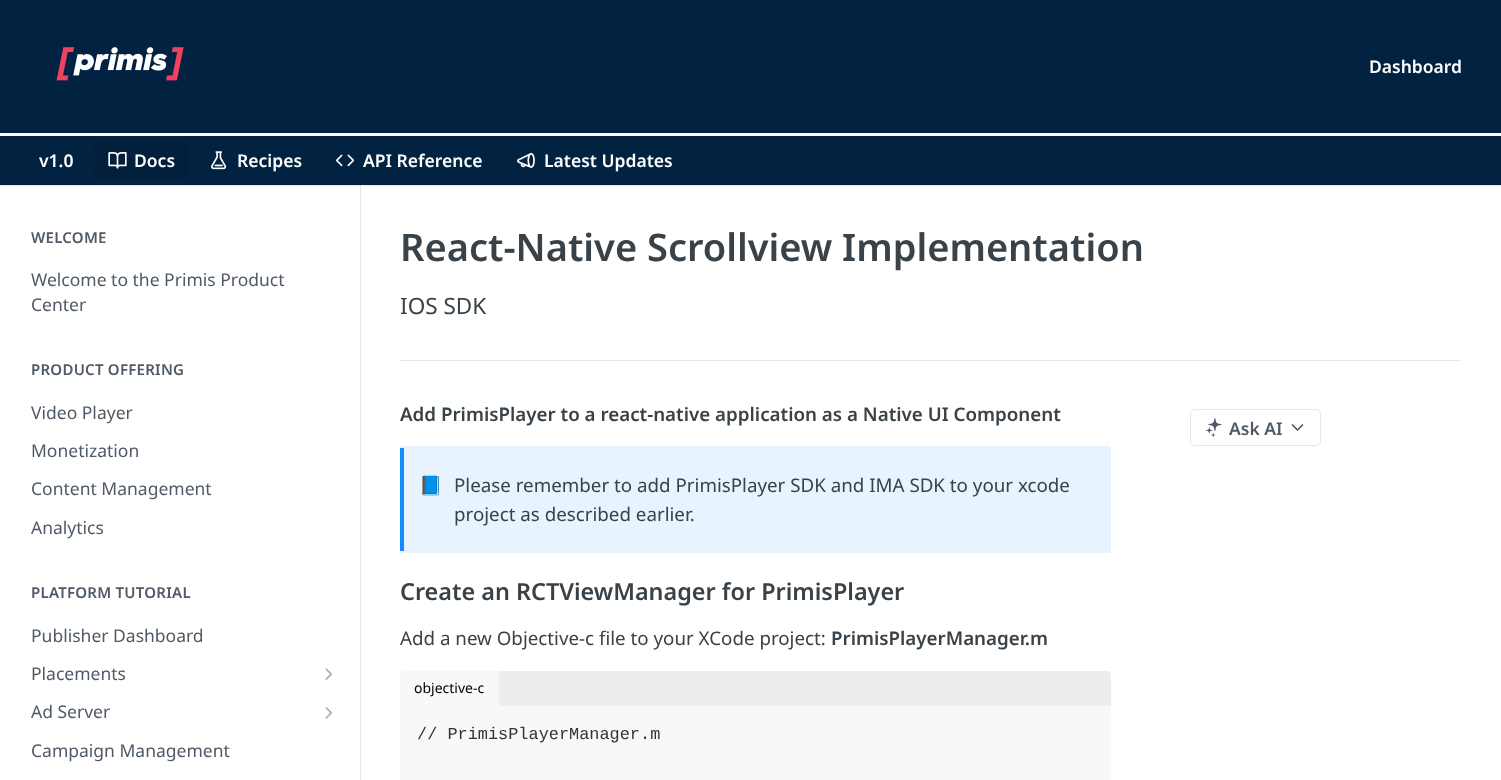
<svg xmlns="http://www.w3.org/2000/svg" width="1501" height="780" viewBox="0 0 1501 780">
  <rect width="100%" height="100%" fill="#fff"/>
  <path d="M0 185h1501v1H0z" fill="#e6e6e6"/>
  <path d="M0 0h1501v185H0z" fill="#022242"/>
  <path d="M0 133h1501v3H0z" fill="#fff"/>
  <image x="56" y="47" width="128" height="34" href="img/1.png"/>
  <rect x="94" y="141" width="95" height="38" rx="5" fill="#021f3b"/>
  <image x="108" y="152" width="19" height="17" href="img/2.png"/>
  <image x="211" y="151" width="16" height="19" href="img/3.png"/>
  <image x="335" y="154" width="20" height="13" href="img/4.png"/>
  <image x="517" y="152" width="18" height="16" href="img/5.png"/>
  <path d="M360 185h1v595H360z" fill="#e6e6e6"/>
  <path d="M360 185h1v1H360z" fill="#cfcfcf"/>
  <image x="325" y="668" width="7" height="12" href="img/6.png"/>
  <image x="325" y="707" width="7" height="12" href="img/7.png"/>
  <path d="M400 360h1061v1H400z" fill="#e6e6e6"/>
  <rect x="400" y="446" width="711" height="107" rx="2.5" fill="#e7f4ff"/>
  <path d="M400 448h4v103H400z" fill="#118cfd"/>
  <path d="M404 671H1107C1109 671 1111 673 1111 675V706H400V675C400 673 402 671 404 671Z" fill="#ebedef"/>
  <path d="M404 671H499V706H400V675C400 673 402 671 404 671Z" fill="#f6f8fa"/>
  <path d="M400 706h711v74H400z" fill="#f6f8fa"/>
  <rect x="1190.5" y="409.5" width="130" height="36" rx="4.5" fill="none" stroke="#e6e6e6"/>
  <image x="1206" y="418" width="16" height="19" href="img/8.png"/>
  <path d="M1292.5 425L1297.5 430L1302.5 425" fill="none" stroke="#4f5a66" stroke-width="1.7" stroke-linecap="round" stroke-linejoin="round"/>
  <g font-family="Noto Sans" font-size="17.5" font-weight="600" fill="#fff">
    <text x="1369" y="73">Dashboard</text>
    <text x="39" y="167">v1.0</text>
    <text x="134" y="167">Docs</text>
    <text x="237" y="167">Recipes</text>
    <text x="363" y="167">API Reference</text>
    <text x="544" y="167">Latest Updates</text>
  </g>
  <text x="31" y="243" font-family="Noto Sans" font-size="15" font-weight="600" letter-spacing="0.25" fill="#4f5a66">WELCOME</text>
  <g font-family="Noto Sans" font-size="17.5" fill="#4f5a66">
    <text x="31" y="286">Welcome to the Primis Product</text>
    <text x="31" y="311">Center</text>
  </g>
  <text x="31" y="375" font-family="Noto Sans" font-size="15" font-weight="600" letter-spacing="0.25" fill="#4f5a66">PRODUCT OFFERING</text>
  <g font-family="Noto Sans" font-size="17.5" fill="#4f5a66">
    <text x="31" y="419">Video Player</text>
    <text x="31" y="457">Monetization</text>
    <text x="31" y="495">Content Management</text>
    <text x="31" y="534">Analytics</text>
  </g>
  <text x="31" y="598" font-family="Noto Sans" font-size="15" font-weight="600" letter-spacing="0.25" fill="#4f5a66">PLATFORM TUTORIAL</text>
  <g font-family="Noto Sans" font-size="17.5" fill="#4f5a66">
    <text x="31" y="642">Publisher Dashboard</text>
    <text x="31" y="680">Placements</text>
    <text x="31" y="718">Ad Server</text>
    <text x="31" y="757">Campaign Management</text>
  </g>
  <text x="400" y="261" font-family="Noto Sans" font-size="38" font-weight="600" fill="#384248">React-Native Scrollview Implementation</text>
  <text x="400" y="314" font-family="Noto Sans" font-size="22.5" fill="#384248">IOS SDK</text>
  <text x="400" y="421" font-family="Noto Sans" font-size="18.75" font-weight="600" fill="#384248">Add PrimisPlayer to a react-native application as a Native UI Component</text>
  <text x="419" y="492" font-family="Noto Color Emoji" font-size="18.75" fill="#384248">📘</text>
  <g font-family="Noto Sans" font-size="18.75" fill="#384248">
    <text x="454" y="492">Please remember to add PrimisPlayer SDK and IMA SDK to your xcode</text>
    <text x="454" y="521">project as described earlier.</text>
  </g>
  <text x="400" y="600" font-family="Noto Sans" font-size="23.4" font-weight="600" fill="#384248">Create an RCTViewManager for PrimisPlayer</text>
  <text x="400" y="645" font-family="Noto Sans" font-size="18.75" fill="#384248">Add a new Objective-c file to your XCode project:</text>
  <text x="831" y="645" font-family="Noto Sans" font-size="18.75" font-weight="600" fill="#384248">PrimisPlayerManager.m</text>
  <text x="414" y="693" font-family="Noto Sans" font-size="14" fill="#000">objective-c</text>
  <text x="417" y="739" font-family="Liberation Mono" font-size="16.9" fill="#333">// PrimisPlayerManager.m</text>
  <text x="1229" y="435" font-family="Noto Sans" font-size="17.5" font-weight="600" fill="#4f5a66">Ask AI</text>
</svg>
